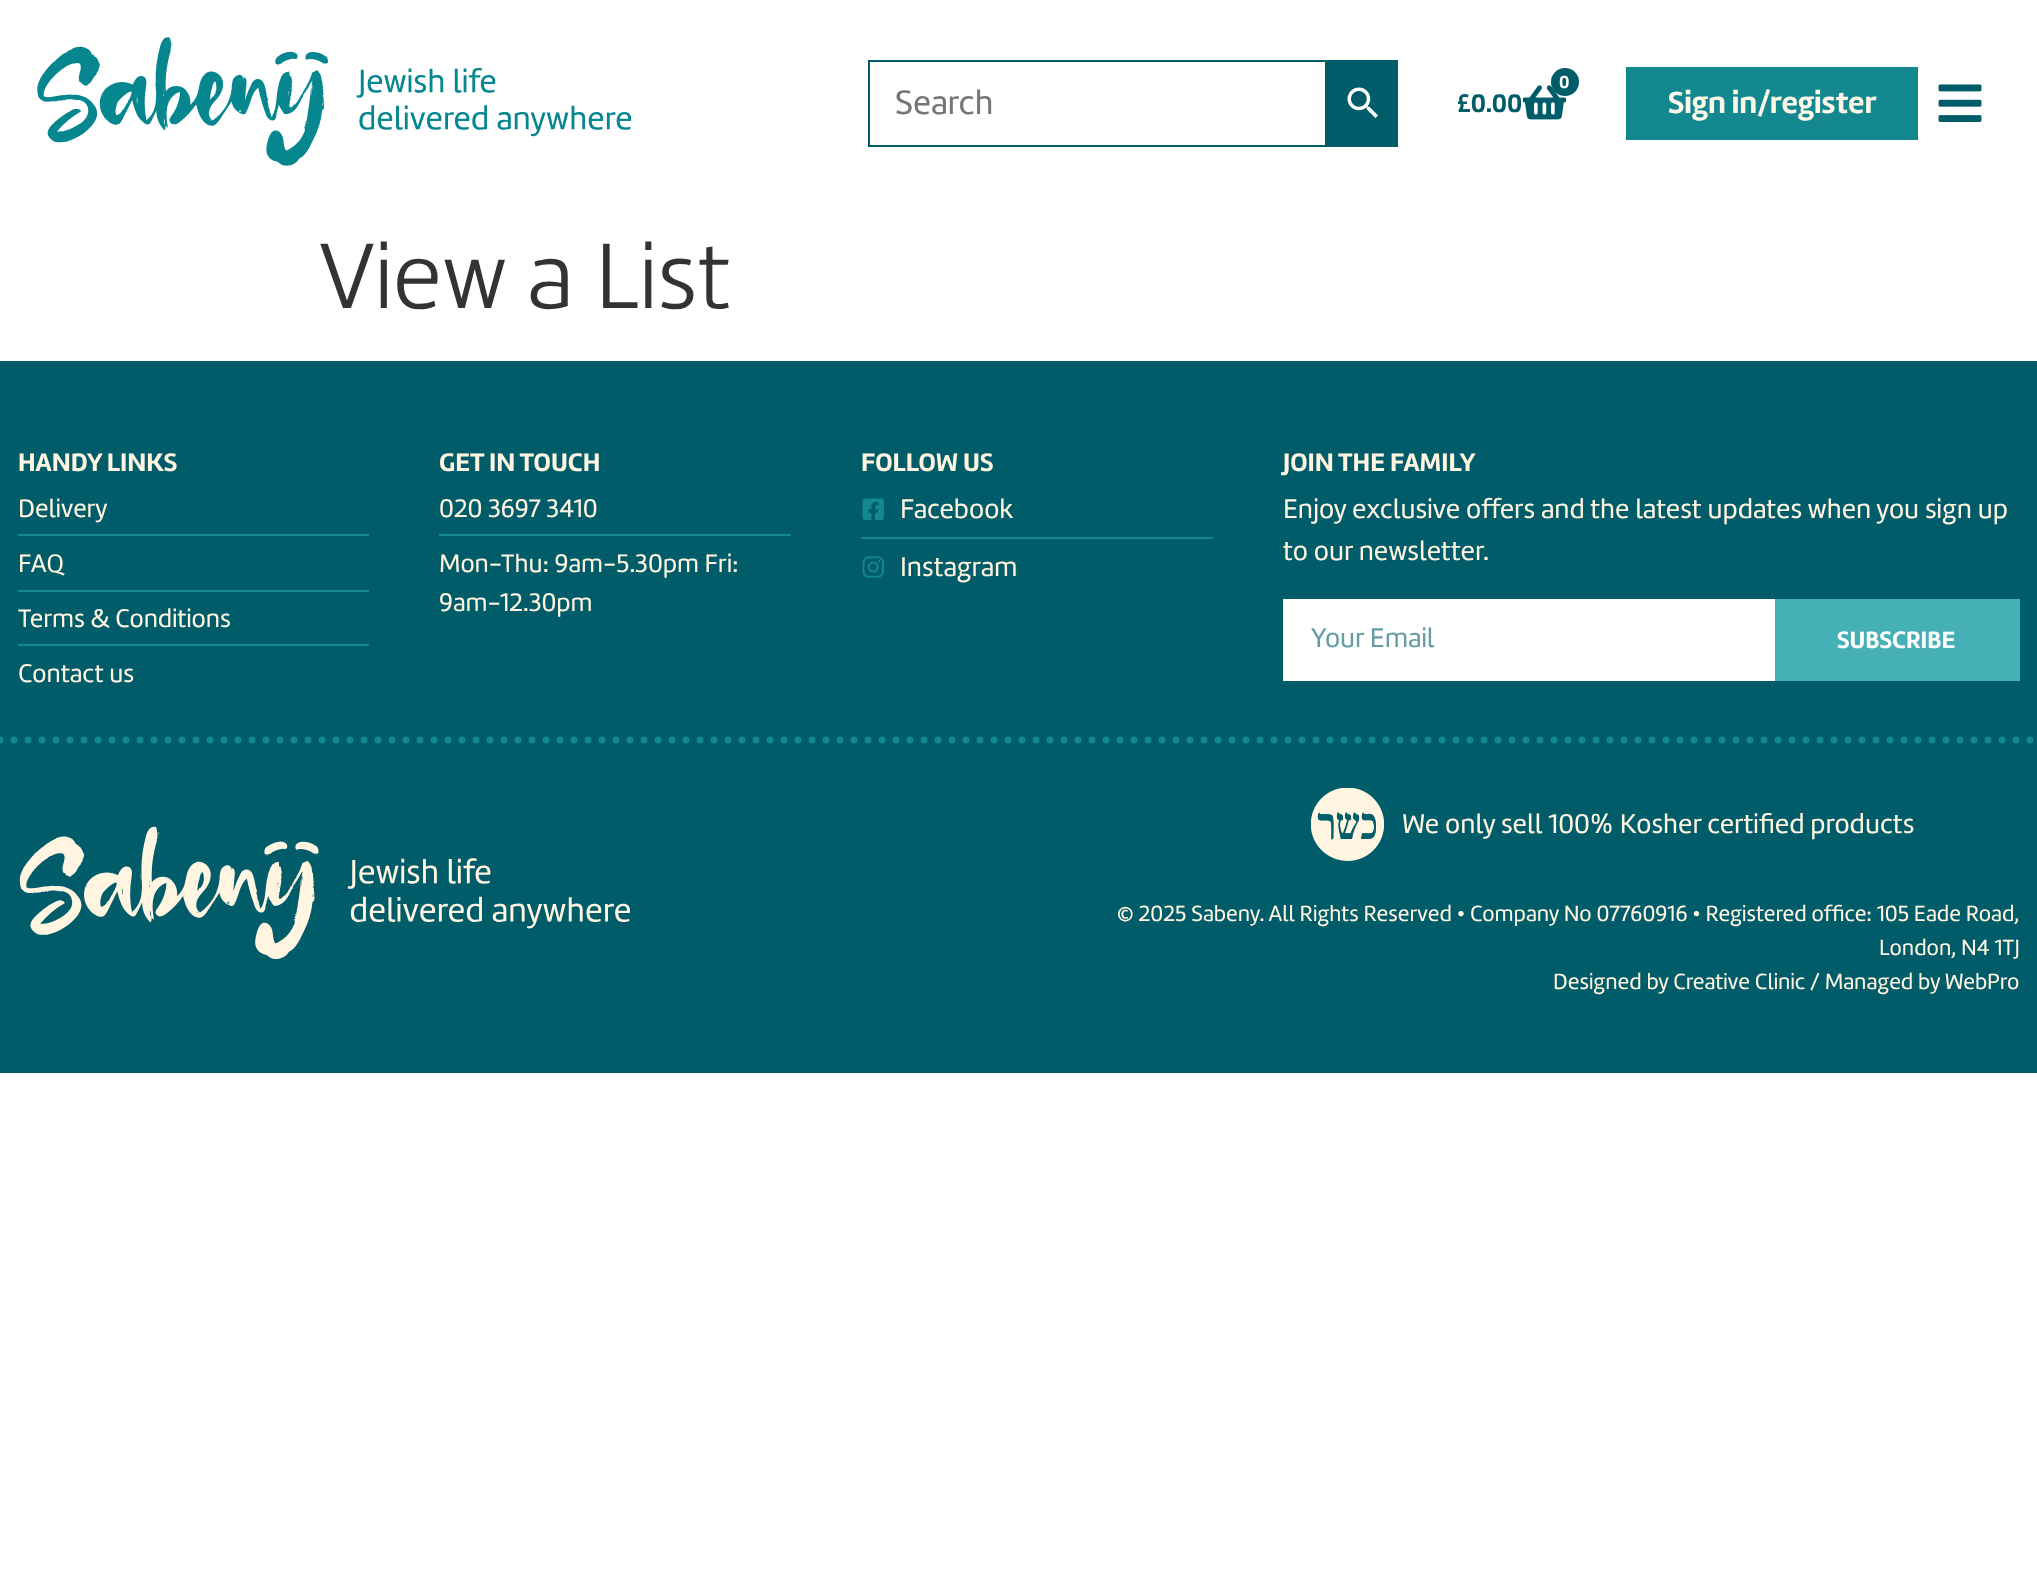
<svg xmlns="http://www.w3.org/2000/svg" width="2037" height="1580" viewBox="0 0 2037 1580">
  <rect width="100%" height="100%" fill="#fff"/>
  <image x="37" y="37" width="595" height="129" href="img/1.png"/>
  <path d="M869 61h457v85H869z" fill="none" stroke="#015c69" stroke-width="2"/>
  <path d="M1327 60h71v87H1327z" fill="#015c69"/>
  <image x="1347" y="87" width="31" height="31" href="img/2.png"/>
  <image x="1523" y="85" width="43" height="35" href="img/3.png"/>
  <circle cx="1565" cy="82" r="14" fill="#005c69"/>
  <path d="M1626 67h292v73H1626z" fill="#13888e"/>
  <image x="1938" y="84" width="44" height="38" href="img/4.png"/>
  <path d="M0 361h2037v712H0z" fill="#005c69"/>
  <path d="M18 534h351v2H18z" fill="#13888e"/>
  <path d="M18 590h351v2H18z" fill="#13888e"/>
  <path d="M18 644h351v2H18z" fill="#13888e"/>
  <path d="M439 534h352v2H439z" fill="#13888e"/>
  <image x="862" y="498" width="22" height="22" href="img/5.png"/>
  <path d="M861 537h352v2H861z" fill="#13888e"/>
  <image x="862" y="556" width="22" height="22" href="img/6.png"/>
  <path d="M1283 599h492v82H1283z" fill="#fff"/>
  <path d="M1775 599h245v82H1775z" fill="#45b0b6"/>
  <path d="M0 740H2037" fill="none" stroke="#13888e" stroke-width="7" stroke-linecap="round" stroke-dasharray="0 14"/>
  <image x="19" y="826" width="611" height="133" href="img/7.png"/>
  <image x="1311" y="788" width="73" height="73" href="img/8.png"/>
  <text x="895" y="114" font-family="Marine" font-size="35" fill="#757575">Search</text>
  <text x="1559" y="88" font-family="Marine" font-size="18" font-weight="bold" fill="#fff">0</text>
  <text x="1457" y="112" font-family="Marine" font-size="26.25" font-weight="bold" fill="#005c69">£0.00</text>
  <text x="1668" y="113" font-family="Marine" font-size="31.5" font-weight="bold" fill="#fff8e9">Sign in/register</text>
  <text x="319" y="308" font-family="Marine" font-size="96.25" font-weight="300" fill="#333">View a List</text>
  <text x="18" y="471" font-family="Marine" font-size="26.25" font-weight="bold" fill="#fff5e0">HANDY LINKS</text>
  <g font-family="Marine" font-size="26.25" fill="#fff5e0">
    <text x="18" y="517">Delivery</text>
    <text x="18" y="572">FAQ</text>
    <text x="18" y="627">Terms &amp; Conditions</text>
    <text x="18" y="682">Contact us</text>
  </g>
  <text x="439" y="471" font-family="Marine" font-size="26.25" font-weight="bold" fill="#fff5e0">GET IN TOUCH</text>
  <g font-family="Marine" font-size="26.25" fill="#fff5e0">
    <text x="439" y="517">020 3697 3410</text>
    <text x="439" y="572">Mon-Thu: 9am-5.30pm Fri:</text>
    <text x="439" y="611">9am-12.30pm</text>
  </g>
  <text x="861" y="471" font-family="Marine" font-size="26.25" font-weight="bold" fill="#fff5e0">FOLLOW US</text>
  <g font-family="Marine" font-size="28" fill="#fff5e0">
    <text x="900" y="518">Facebook</text>
    <text x="900" y="576">Instagram</text>
  </g>
  <text x="1283" y="471" font-family="Marine" font-size="26.25" font-weight="bold" fill="#fff5e0">JOIN THE FAMILY</text>
  <g font-family="Marine" font-size="28" fill="#fff5e0">
    <text x="1283" y="518">Enjoy exclusive offers and the latest updates when you sign up</text>
    <text x="1283" y="560">to our newsletter.</text>
  </g>
  <text x="1311" y="647" font-family="Marine" font-size="28" fill="#669da5">Your Email</text>
  <text x="1837" y="648" font-family="Marine" font-size="24.5" font-weight="bold" fill="#fff">SUBSCRIBE</text>
  <text x="1402" y="833" font-family="Marine" font-size="28" fill="#fff5e0">We only sell 100% Kosher certified products</text>
  <g font-family="Marine" font-size="22.75" fill="#fff5e0">
    <text x="1117" y="921">© 2025 Sabeny. All Rights Reserved • Company No 07760916 • Registered office: 105 Eade Road,</text>
    <text x="1879" y="955">London, N4 1TJ</text>
    <text x="1553" y="989">Designed by Creative Clinic / Managed by WebPro</text>
  </g>
</svg>
